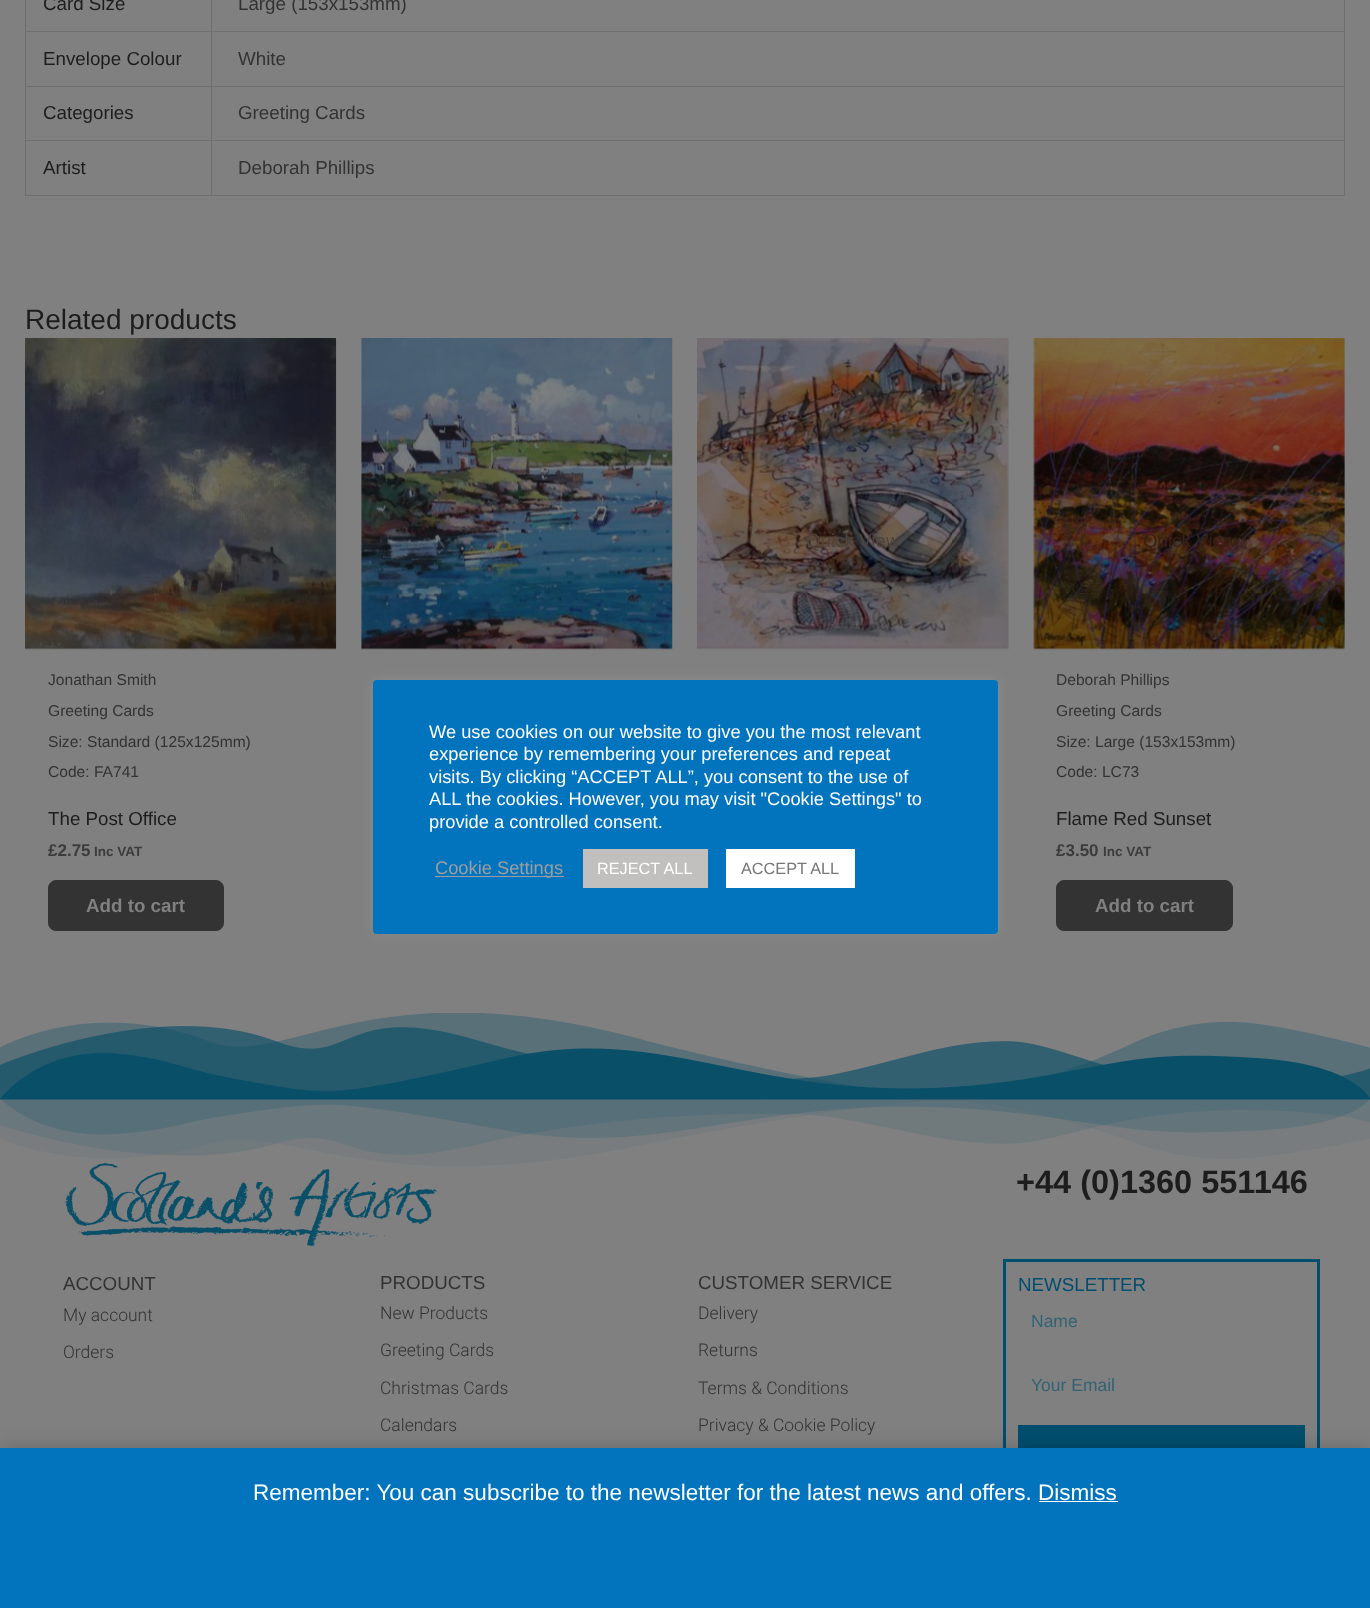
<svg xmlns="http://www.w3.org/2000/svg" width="1370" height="1608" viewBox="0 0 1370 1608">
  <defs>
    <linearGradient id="g1" gradientUnits="userSpaceOnUse" x1="685" y1="1099" x2="685" y2="1544"><stop offset="0" stop-color="#808080" stop-opacity="0.5"/><stop offset="0.1" stop-color="#808080" stop-opacity="0.23"/></linearGradient>
  </defs>
  <rect width="100%" height="100%" fill="#808080"/>
  <path d="M211 0h1v196H211z" fill="#6f6f6f"/>
  <path d="M25 31h188v1H25z" fill="#6f6f6f"/>
  <path d="M25 0h1v33H25z" fill="#6f6f6f"/>
  <path d="M1344 0h1v196H1344z" fill="#6f6f6f"/>
  <path d="M213 31h1132v1H213z" fill="#6f6f6f"/>
  <path d="M25 86h1320v1H25z" fill="#6f6f6f"/>
  <path d="M25 33h1v55H25z" fill="#6f6f6f"/>
  <path d="M25 140h1320v1H25z" fill="#6f6f6f"/>
  <path d="M25 88h1v53H25z" fill="#6f6f6f"/>
  <path d="M25 195h1320v1H25z" fill="#6f6f6f"/>
  <path d="M25 141h1v55H25z" fill="#6f6f6f"/>
  <image x="25" y="338" width="312" height="312" href="img/1.png"/>
  <rect x="48.5" y="880.5" width="175" height="50" rx="7.5" fill="#333" stroke="#333"/>
  <image x="361" y="338" width="312" height="312" href="img/2.png"/>
  <image x="697" y="338" width="313" height="312" href="img/3.png"/>
  <image x="1033" y="338" width="312" height="312" href="img/4.png"/>
  <rect x="1056.5" y="880.5" width="176" height="50" rx="7.5" fill="#333" stroke="#333"/>
  <image x="0" y="1013" width="1370" height="87" href="img/5.png"/>
  <path d="M0 1099h1370v1H0z" fill="url(#g1)"/>
  <image x="0" y="1098" width="1370" height="68" href="img/6.png"/>
  <image x="65" y="1163" width="372" height="84" href="img/7.png"/>
  <path d="M1004.5 1260.5h314v232H1004.5z" fill="none" stroke="#004e6e" stroke-width="3"/>
  <path d="M1018 1425h287v23H1018z" fill="#004e6e"/>
  <rect x="373" y="679" width="625" height="254" rx="4" fill="#acabab4d" filter="blur(6px)"/>
  <rect x="373" y="680" width="625" height="254" rx="4" fill="#0274be"/>
  <path d="M435 876h129v1H435z" fill="#9e9e9e"/>
  <path d="M583 849h125v39H583z" fill="#c1c0bf"/>
  <path d="M726 849h129v39H726z" fill="#fff"/>
  <path d="M0 1449h1370v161H0z" fill="#00000033" filter="blur(11px)"/>
  <path d="M0 1448h1370v160H0z" fill="#0274be"/>
  <path d="M1039 1501h79v1H1039z" fill="#fff"/>
  <text x="43" y="10" font-family="Liberation Sans" font-size="18.75" fill="#1d1d1d">Card Size</text>
  <text x="238" y="10" font-family="Liberation Sans" font-size="18.75" fill="#333">Large (153x153mm)</text>
  <text x="43" y="65" font-family="Liberation Sans" font-size="18.75" fill="#1d1d1d">Envelope Colour</text>
  <text x="238" y="65" font-family="Liberation Sans" font-size="18.75" fill="#333">White</text>
  <text x="43" y="119" font-family="Liberation Sans" font-size="18.75" fill="#1d1d1d">Categories</text>
  <text x="238" y="119" font-family="Liberation Sans" font-size="18.75" fill="#333">Greeting Cards</text>
  <text x="43" y="174" font-family="Liberation Sans" font-size="18.75" fill="#1d1d1d">Artist</text>
  <text x="238" y="174" font-family="Liberation Sans" font-size="18.75" fill="#333">Deborah Phillips</text>
  <text x="25" y="329" font-family="Liberation Sans" font-size="28" fill="#1d1d1d">Related products</text>
  <g font-family="Liberation Sans" font-size="15.6" fill="#333">
    <text x="48" y="685">Jonathan Smith</text>
    <text x="48" y="716">Greeting Cards</text>
    <text x="48" y="747">Size: Standard (125x125mm)</text>
    <text x="48" y="777">Code: FA741</text>
  </g>
  <text x="48" y="825" font-family="Liberation Sans" font-size="18.75" fill="#1d1d1d">The Post Office</text>
  <text x="48" y="856" font-family="Liberation Sans" font-size="17" font-weight="bold" fill="#3c3c3c">£2.75</text>
  <text x="94" y="856" font-family="Liberation Sans" font-size="13.5" font-weight="bold" fill="#3c3c3c">Inc VAT</text>
  <text x="86" y="912" font-family="Liberation Sans" font-size="18.75" font-weight="bold" fill="#808080">Add to cart</text>
  <text x="806" y="547" font-family="Liberation Sans" font-size="18.75" fill="#4f433d">Quick View</text>
  <text x="1143" y="547" font-family="Liberation Sans" font-size="18.75" fill="#382015">Quick View</text>
  <g font-family="Liberation Sans" font-size="15.6" fill="#333">
    <text x="1056" y="685">Deborah Phillips</text>
    <text x="1056" y="716">Greeting Cards</text>
    <text x="1056" y="747">Size: Large (153x153mm)</text>
    <text x="1056" y="777">Code: LC73</text>
  </g>
  <text x="1056" y="825" font-family="Liberation Sans" font-size="18.75" fill="#1d1d1d">Flame Red Sunset</text>
  <text x="1056" y="856" font-family="Liberation Sans" font-size="17" font-weight="bold" fill="#3c3c3c">£3.50</text>
  <text x="1103" y="856" font-family="Liberation Sans" font-size="13.5" font-weight="bold" fill="#3c3c3c">Inc VAT</text>
  <text x="1095" y="912" font-family="Liberation Sans" font-size="18.75" font-weight="bold" fill="#808080">Add to cart</text>
  <text x="1016" y="1193" font-family="Liberation Sans" font-size="32.5" font-weight="bold" fill="#1d1d1d">+44 (0)1360 551146</text>
  <text x="63" y="1290" font-family="Liberation Sans" font-size="18.75" fill="#333">ACCOUNT</text>
  <g font-family="Roboto" font-size="17.5" font-weight="300" fill="#333">
    <text x="63" y="1321">My account</text>
    <text x="63" y="1358">Orders</text>
  </g>
  <text x="380" y="1289" font-family="Liberation Sans" font-size="18.75" fill="#333">PRODUCTS</text>
  <g font-family="Roboto" font-size="17.5" font-weight="300" fill="#333">
    <text x="380" y="1319">New Products</text>
    <text x="380" y="1356">Greeting Cards</text>
    <text x="380" y="1394">Christmas Cards</text>
    <text x="380" y="1431">Calendars</text>
  </g>
  <text x="698" y="1289" font-family="Liberation Sans" font-size="18.75" fill="#333">CUSTOMER SERVICE</text>
  <g font-family="Roboto" font-size="17.5" font-weight="300" fill="#333">
    <text x="698" y="1319">Delivery</text>
    <text x="698" y="1356">Returns</text>
    <text x="698" y="1394">Terms &amp; Conditions</text>
    <text x="698" y="1431">Privacy &amp; Cookie Policy</text>
  </g>
  <text x="1018" y="1291" font-family="Liberation Sans" font-size="18.75" fill="#004e6e">NEWSLETTER</text>
  <g font-family="Liberation Sans" font-size="17.5" fill="#336275">
    <text x="1031" y="1327">Name</text>
    <text x="1031" y="1391">Your Email</text>
  </g>
  <g font-family="Liberation Sans" font-size="18.3" fill="#fff">
    <text x="429" y="738">We use cookies on our website to give you the most relevant</text>
    <text x="429" y="760">experience by remembering your preferences and repeat</text>
    <text x="429" y="783">visits. By clicking “ACCEPT ALL”, you consent to the use of</text>
    <text x="429" y="805">ALL the cookies. However, you may visit "Cookie Settings" to</text>
    <text x="429" y="828">provide a controlled consent.</text>
  </g>
  <text x="435" y="874" font-family="Liberation Sans" font-size="18.3" fill="#9e9e9e">Cookie Settings</text>
  <text x="597" y="874" font-family="Liberation Sans" font-size="16.25" fill="#fff">REJECT ALL</text>
  <text x="741" y="874" font-family="Liberation Sans" font-size="16.25" fill="#777">ACCEPT ALL</text>
  <text x="253" y="1500" font-family="Liberation Sans" font-size="22.5" fill="#fff">Remember: You can subscribe to the newsletter for the latest news and offers. Dismiss</text>
</svg>
